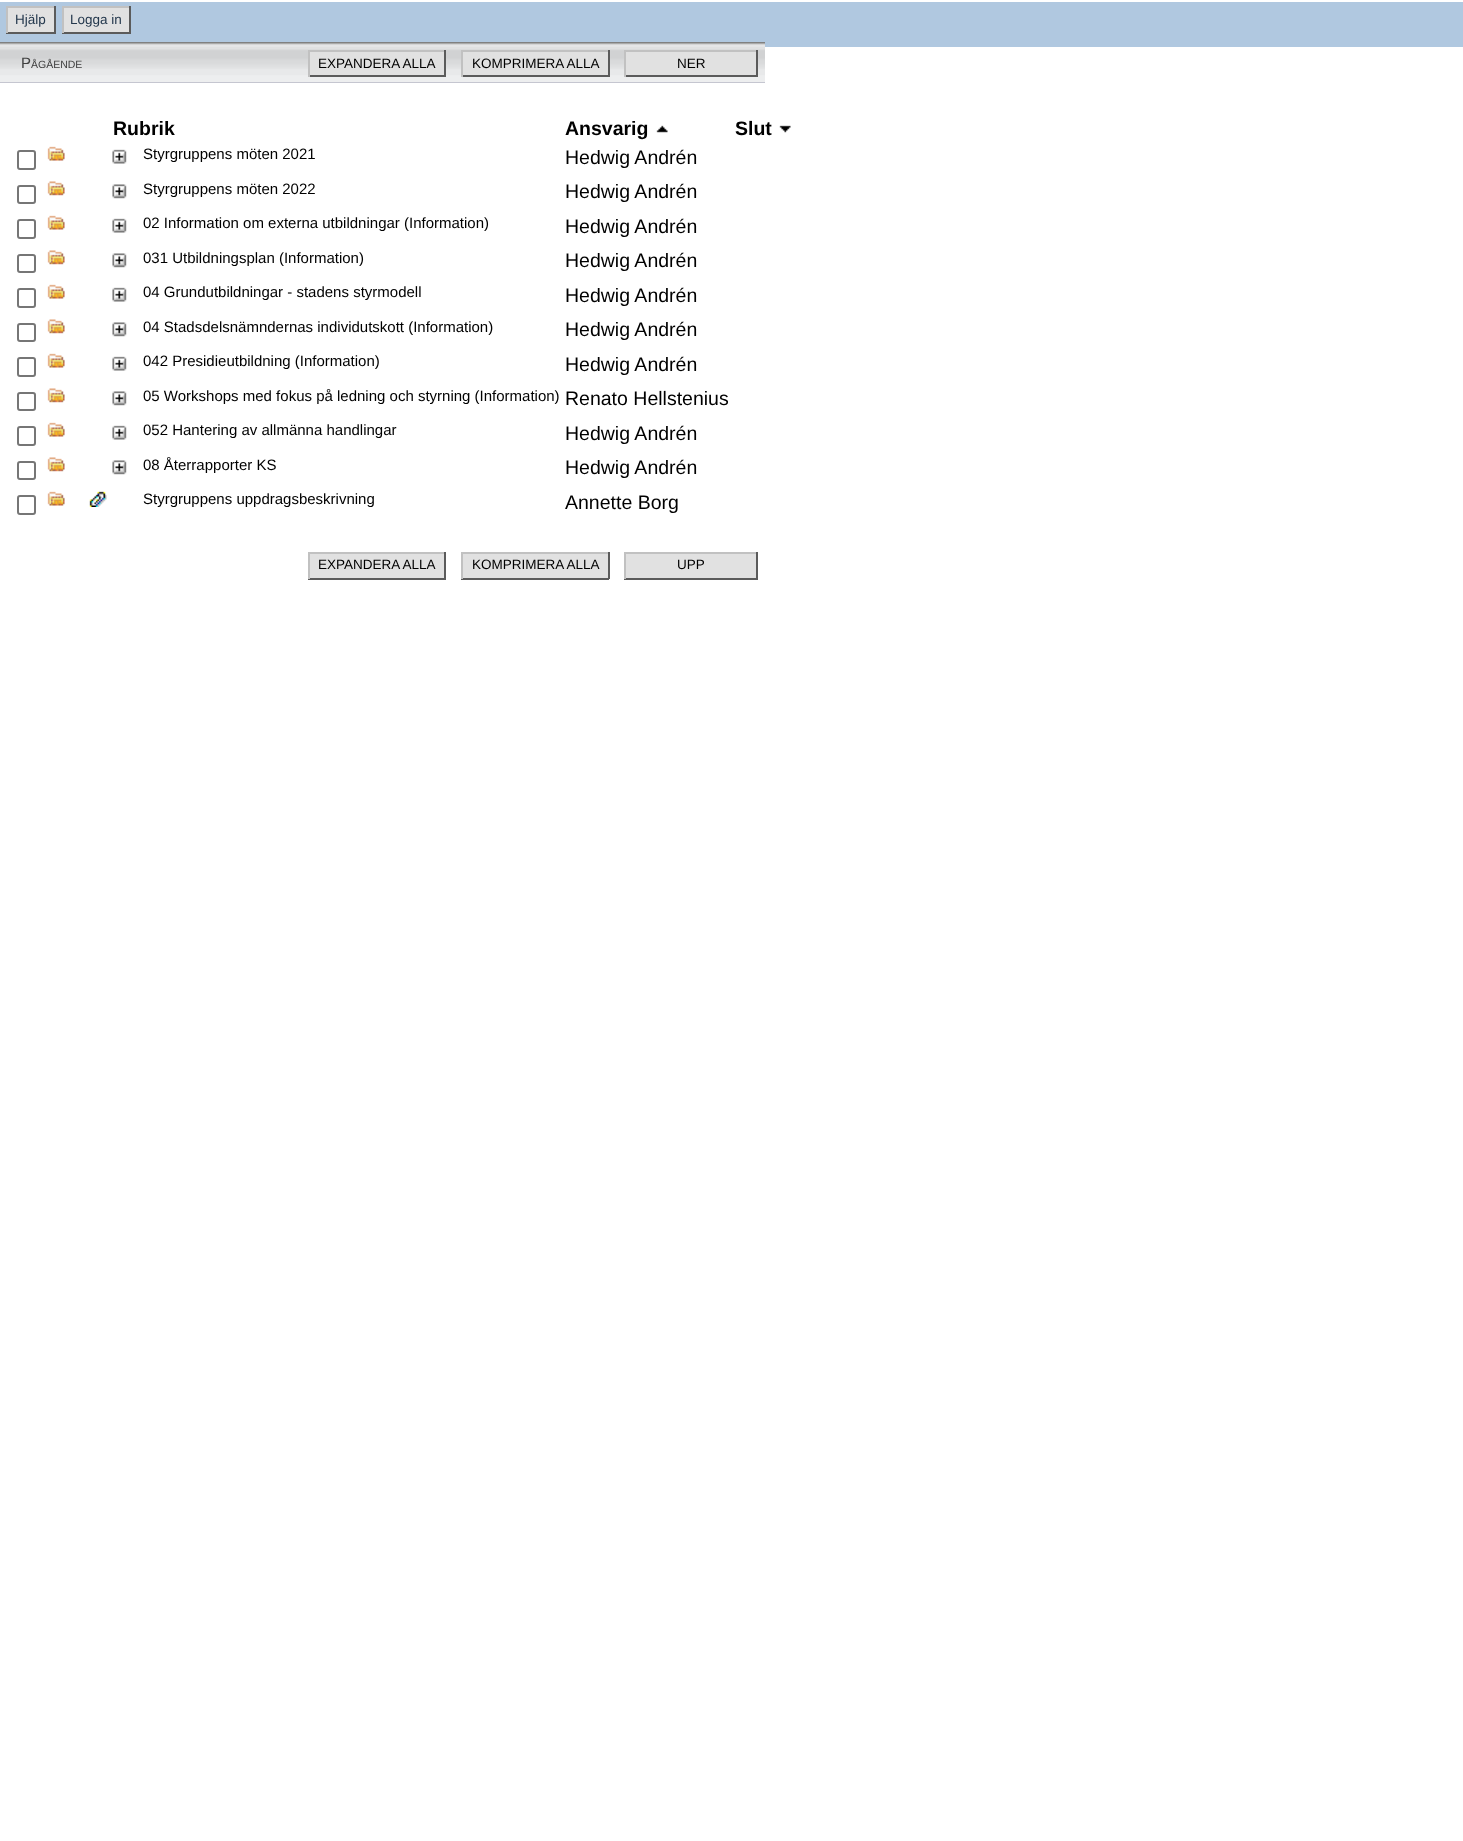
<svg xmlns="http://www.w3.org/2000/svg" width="1463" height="1841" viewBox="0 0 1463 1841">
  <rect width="100%" height="100%" fill="#fff"/>
  <path d="M0 2h1463v45H0z" fill="#b0c8e0"/>
  <path d="M8 8h46v24H8z" fill="#e1e1e1"/>
  <path d="M6 6h50v2H6z" fill="#c1c1c1"/>
  <path d="M54 6h2v27H54z" fill="#5b5b5b"/>
  <path d="M6 32h50v2H6z" fill="#5b5b5b"/>
  <path d="M6 6h2v27H6z" fill="#c1c1c1"/>
  <path d="M64 8h65v24H64z" fill="#e1e1e1"/>
  <path d="M62 6h69v2H62z" fill="#c1c1c1"/>
  <path d="M129 6h2v27H129z" fill="#5b5b5b"/>
  <path d="M62 32h69v2H62z" fill="#5b5b5b"/>
  <path d="M62 6h2v27H62z" fill="#c1c1c1"/>
  <path d="M0 82h765v1H0z" fill="#dde0ec"/>
  <image x="0" y="42" width="765" height="41" href="img/1.png"/>
  <path d="M310 52h134v23H310z" fill="#e1e1e1"/>
  <path d="M308 50h138v2H308z" fill="#c1c1c1"/>
  <path d="M444 50h2v27H444z" fill="#5b5b5b"/>
  <path d="M308 75h138v2H308z" fill="#5b5b5b"/>
  <path d="M308 50h2v27H308z" fill="#c1c1c1"/>
  <path d="M463 52h145v23H463z" fill="#e1e1e1"/>
  <path d="M461 50h148v2H461z" fill="#c1c1c1"/>
  <path d="M608 50h2v27H608z" fill="#5b5b5b"/>
  <path d="M461 75h148v2H461z" fill="#5b5b5b"/>
  <path d="M461 50h2v27H461z" fill="#c1c1c1"/>
  <path d="M626 52h130v23H626z" fill="#e1e1e1"/>
  <path d="M624 50h134v2H624z" fill="#c1c1c1"/>
  <path d="M756 50h2v27H756z" fill="#5b5b5b"/>
  <path d="M624 75h134v2H624z" fill="#5b5b5b"/>
  <path d="M624 50h2v27H624z" fill="#c1c1c1"/>
  <image x="656" y="125" width="12" height="8" href="img/2.png"/>
  <image x="779" y="125" width="12" height="8" href="img/3.png"/>
  <rect x="18" y="151" width="17" height="18" rx="2" fill="none" stroke="#767676" stroke-width="2"/>
  <image x="47" y="146" width="18" height="15" href="img/4.png"/>
  <image x="112" y="149" width="15" height="15" href="img/5.png"/>
  <rect x="18" y="186" width="17" height="17" rx="2" fill="none" stroke="#767676" stroke-width="2"/>
  <image x="47" y="181" width="18" height="15" href="img/6.png"/>
  <image x="112" y="184" width="15" height="15" href="img/7.png"/>
  <rect x="18" y="220" width="17" height="18" rx="2" fill="none" stroke="#767676" stroke-width="2"/>
  <image x="47" y="215" width="18" height="15" href="img/4.png"/>
  <image x="112" y="218" width="15" height="15" href="img/5.png"/>
  <rect x="18" y="255" width="17" height="17" rx="2" fill="none" stroke="#767676" stroke-width="2"/>
  <image x="47" y="250" width="18" height="15" href="img/6.png"/>
  <image x="112" y="253" width="15" height="15" href="img/7.png"/>
  <rect x="18" y="289" width="17" height="18" rx="2" fill="none" stroke="#767676" stroke-width="2"/>
  <image x="47" y="284" width="18" height="15" href="img/4.png"/>
  <image x="112" y="287" width="15" height="15" href="img/5.png"/>
  <rect x="18" y="324" width="17" height="17" rx="2" fill="none" stroke="#767676" stroke-width="2"/>
  <image x="47" y="319" width="18" height="15" href="img/6.png"/>
  <image x="112" y="322" width="15" height="15" href="img/7.png"/>
  <rect x="18" y="358" width="17" height="18" rx="2" fill="none" stroke="#767676" stroke-width="2"/>
  <image x="47" y="353" width="18" height="15" href="img/4.png"/>
  <image x="112" y="356" width="15" height="15" href="img/5.png"/>
  <rect x="18" y="393" width="17" height="17" rx="2" fill="none" stroke="#767676" stroke-width="2"/>
  <image x="47" y="388" width="18" height="15" href="img/6.png"/>
  <image x="112" y="391" width="15" height="15" href="img/7.png"/>
  <rect x="18" y="427" width="17" height="18" rx="2" fill="none" stroke="#767676" stroke-width="2"/>
  <image x="47" y="422" width="18" height="15" href="img/4.png"/>
  <image x="112" y="425" width="15" height="15" href="img/5.png"/>
  <rect x="18" y="462" width="17" height="17" rx="2" fill="none" stroke="#767676" stroke-width="2"/>
  <image x="47" y="457" width="18" height="15" href="img/6.png"/>
  <image x="112" y="460" width="15" height="15" href="img/7.png"/>
  <rect x="18" y="496" width="17" height="18" rx="2" fill="none" stroke="#767676" stroke-width="2"/>
  <image x="47" y="491" width="18" height="15" href="img/4.png"/>
  <image x="89" y="491" width="18" height="16" href="img/8.png"/>
  <path d="M310 554h134v24H310z" fill="#e1e1e1"/>
  <path d="M308 552h138v2H308z" fill="#c1c1c1"/>
  <path d="M444 552h2v27H444z" fill="#5b5b5b"/>
  <path d="M308 578h138v2H308z" fill="#5b5b5b"/>
  <path d="M308 552h2v27H308z" fill="#c1c1c1"/>
  <path d="M463 554h145v24H463z" fill="#e1e1e1"/>
  <path d="M461 552h148v2H461z" fill="#c1c1c1"/>
  <path d="M608 552h2v27H608z" fill="#5b5b5b"/>
  <path d="M461 578h148v2H461z" fill="#5b5b5b"/>
  <path d="M461 552h2v27H461z" fill="#c1c1c1"/>
  <path d="M626 554h130v24H626z" fill="#e1e1e1"/>
  <path d="M624 552h134v2H624z" fill="#c1c1c1"/>
  <path d="M756 552h2v27H756z" fill="#5b5b5b"/>
  <path d="M624 578h134v2H624z" fill="#5b5b5b"/>
  <path d="M624 552h2v27H624z" fill="#c1c1c1"/>
  <g font-family="Liberation Sans" font-size="13.5" fill="#24384d">
    <text x="15" y="24">Hjälp</text>
    <text x="70" y="24">Logga in</text>
  </g>
  <text x="21" y="68" font-family="Liberation Sans" font-size="15" fill="#404040">P</text>
  <text x="31" y="68" font-family="Liberation Sans" font-size="10.5" fill="#404040">ÅGÅENDE</text>
  <g font-family="Liberation Sans" font-size="13.5" fill="#000">
    <text x="318" y="68">EXPANDERA ALLA</text>
    <text x="472" y="68">KOMPRIMERA ALLA</text>
    <text x="677" y="68">NER</text>
  </g>
  <g font-family="Liberation Sans" font-size="19.5" font-weight="bold" fill="#000">
    <text x="113" y="135">Rubrik</text>
    <text x="565" y="135">Ansvarig</text>
    <text x="735" y="135">Slut</text>
  </g>
  <text x="143" y="159" font-family="Liberation Sans" font-size="15" fill="#000">Styrgruppens möten 2021</text>
  <text x="565" y="164" font-family="Liberation Sans" font-size="19.5" fill="#000">Hedwig Andrén</text>
  <text x="143" y="194" font-family="Liberation Sans" font-size="15" fill="#000">Styrgruppens möten 2022</text>
  <text x="565" y="198" font-family="Liberation Sans" font-size="19.5" fill="#000">Hedwig Andrén</text>
  <text x="143" y="228" font-family="Liberation Sans" font-size="15" fill="#000">02 Information om externa utbildningar (Information)</text>
  <text x="565" y="233" font-family="Liberation Sans" font-size="19.5" fill="#000">Hedwig Andrén</text>
  <text x="143" y="263" font-family="Liberation Sans" font-size="15" fill="#000">031 Utbildningsplan (Information)</text>
  <text x="565" y="267" font-family="Liberation Sans" font-size="19.5" fill="#000">Hedwig Andrén</text>
  <text x="143" y="297" font-family="Liberation Sans" font-size="15" fill="#000">04 Grundutbildningar - stadens styrmodell</text>
  <text x="565" y="302" font-family="Liberation Sans" font-size="19.5" fill="#000">Hedwig Andrén</text>
  <text x="143" y="332" font-family="Liberation Sans" font-size="15" fill="#000">04 Stadsdelsnämndernas individutskott (Information)</text>
  <text x="565" y="336" font-family="Liberation Sans" font-size="19.5" fill="#000">Hedwig Andrén</text>
  <text x="143" y="366" font-family="Liberation Sans" font-size="15" fill="#000">042 Presidieutbildning (Information)</text>
  <text x="565" y="371" font-family="Liberation Sans" font-size="19.5" fill="#000">Hedwig Andrén</text>
  <text x="143" y="401" font-family="Liberation Sans" font-size="15" fill="#000">05 Workshops med fokus på ledning och styrning (Information)</text>
  <text x="565" y="405" font-family="Liberation Sans" font-size="19.5" fill="#000">Renato Hellstenius</text>
  <text x="143" y="435" font-family="Liberation Sans" font-size="15" fill="#000">052 Hantering av allmänna handlingar</text>
  <text x="565" y="440" font-family="Liberation Sans" font-size="19.5" fill="#000">Hedwig Andrén</text>
  <text x="143" y="470" font-family="Liberation Sans" font-size="15" fill="#000">08 Återrapporter KS</text>
  <text x="565" y="474" font-family="Liberation Sans" font-size="19.5" fill="#000">Hedwig Andrén</text>
  <text x="143" y="504" font-family="Liberation Sans" font-size="15" fill="#000">Styrgruppens uppdragsbeskrivning</text>
  <text x="565" y="509" font-family="Liberation Sans" font-size="19.5" fill="#000">Annette Borg</text>
  <g font-family="Liberation Sans" font-size="13.5" fill="#000">
    <text x="318" y="569">EXPANDERA ALLA</text>
    <text x="472" y="569">KOMPRIMERA ALLA</text>
    <text x="677" y="569">UPP</text>
  </g>
</svg>
